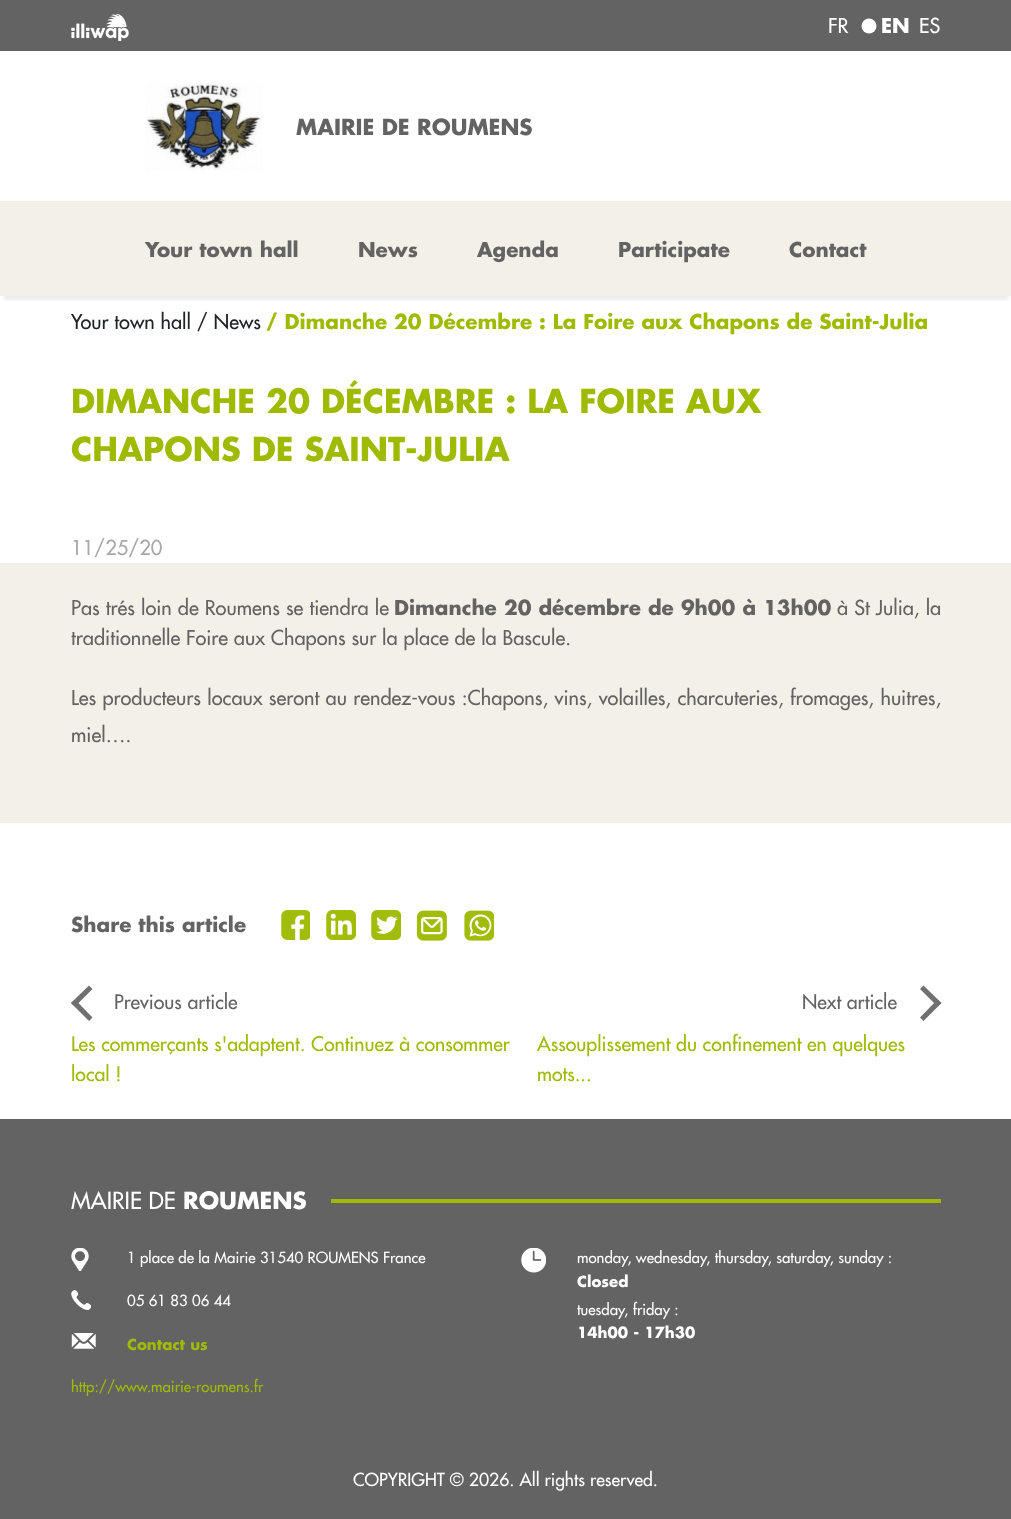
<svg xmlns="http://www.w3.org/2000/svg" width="1011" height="1519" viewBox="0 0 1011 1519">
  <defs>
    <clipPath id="clip1"><path d="M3 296h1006v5H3z"/></clipPath>
  </defs>
  <rect width="100%" height="100%" fill="#fff"/>
  <g clip-path="url(#clip1)">
    <path d="M4 11h1004v289H4z" fill="#00000014" filter="blur(2px)"/>
  </g>
  <path d="M0 0h1011v51H0z" fill="#646363"/>
  <image x="71" y="14" width="58" height="27" href="img/1.png"/>
  <circle cx="869" cy="26" r="7.5" fill="#fff"/>
  <image x="145" y="83" width="118" height="88" href="img/2.png"/>
  <path d="M0 201h1011v95H0z" fill="#f3f0e8"/>
  <path d="M0 563h1011v260H0z" fill="#f3f0e8"/>
  <image x="281" y="910" width="29" height="30" href="img/3.png"/>
  <image x="326" y="910" width="30" height="30" href="img/4.png"/>
  <image x="371" y="910" width="30" height="30" href="img/5.png"/>
  <image x="416" y="910" width="31" height="31" href="img/6.png"/>
  <image x="464" y="910" width="30" height="31" href="img/7.png"/>
  <path d="M89 1021L71 1003L75 999.5L92.5 1017.5Z" fill="#707070"/>
  <path d="M71 1003L89 985.5L92.5 989L75 1006.5Z" fill="#707070"/>
  <path d="M923.5 985.5L941.5 1003L937.5 1006.5L920 989Z" fill="#707070"/>
  <path d="M941.5 1003L923.5 1021L920 1017.5L937.5 999.5Z" fill="#707070"/>
  <path d="M0 1119h1011v400H0z" fill="#646363"/>
  <path d="M331 1199h610v4H331z" fill="#9fba00"/>
  <image x="71" y="1248" width="18" height="23" href="img/8.png"/>
  <image x="71" y="1290" width="20" height="20" href="img/9.png"/>
  <image x="71" y="1333" width="25" height="16" href="img/10.png"/>
  <image x="521" y="1248" width="25" height="25" href="img/11.png"/>
  <text x="828" y="33" font-family="Futura" font-size="20" fill="#fff">FR</text>
  <text x="881" y="33" font-family="Futura" font-size="20" font-weight="bold" fill="#fff">EN</text>
  <text x="919" y="33" font-family="Futura" font-size="20" fill="#fff">ES</text>
  <text x="296" y="135" font-family="Futura" font-size="21.5" font-weight="bold" fill="#646363">MAIRIE DE ROUMENS</text>
  <g font-family="Futura" font-size="20" font-weight="bold" fill="#646363">
    <text x="145" y="257">Your town hall</text>
    <text x="358" y="257">News</text>
    <text x="477" y="257">Agenda</text>
    <text x="618" y="257">Participate</text>
    <text x="789" y="257">Contact</text>
  </g>
  <text x="71" y="329" font-family="Futura" font-size="20" fill="#212529">Your town hall / News</text>
  <text x="266" y="329" font-family="Futura" font-size="20" font-weight="bold" fill="#9fba00">/ Dimanche 20 Décembre : La Foire aux Chapons de Saint-Julia</text>
  <g font-family="Futura" font-size="32.1" font-weight="bold" fill="#9fba00">
    <text x="71" y="413">DIMANCHE 20 DÉCEMBRE : LA FOIRE AUX</text>
    <text x="71" y="461">CHAPONS DE SAINT-JULIA</text>
  </g>
  <text x="71" y="555" font-family="Futura" font-size="20" fill="#a8a8a8">11/25/20</text>
  <text x="71" y="615" word-spacing="0.25" font-family="Futura" font-size="20" fill="#646363">Pas trés loin de Roumens se tiendra le</text>
  <text x="394" y="615" word-spacing="0.25" font-family="Futura" font-size="20" font-weight="bold" fill="#646363">Dimanche 20 décembre de 9h00 à 13h00</text>
  <g font-family="Futura" font-size="20" fill="#646363">
    <text x="837" y="615" word-spacing="0.25">à St Julia, la</text>
    <text x="71" y="645">traditionnelle Foire aux Chapons sur la place de la Bascule.</text>
    <text x="71" y="705" word-spacing="0.5">Les producteurs locaux seront au rendez-vous :Chapons, vins, volailles, charcuteries, fromages, huitres,</text>
    <text x="71" y="742">miel….</text>
  </g>
  <text x="71" y="932" font-family="Futura" font-size="20" font-weight="bold" fill="#646363">Share this article</text>
  <g font-family="Futura" font-size="19.55" fill="#646363">
    <text x="114" y="1009">Previous article</text>
    <text x="802" y="1009">Next article</text>
  </g>
  <g font-family="Futura" font-size="19.55" fill="#9fba00">
    <text x="71" y="1051">Les commerçants s'adaptent. Continuez à consommer</text>
    <text x="71" y="1081">local !</text>
    <text x="537" y="1051">Assouplissement du confinement en quelques</text>
    <text x="537" y="1081">mots...</text>
  </g>
  <text x="71" y="1209" font-family="Futura" font-size="23" fill="#fff">MAIRIE DE</text>
  <text x="183" y="1209" font-family="Futura" font-size="23" font-weight="bold" fill="#fff">ROUMENS</text>
  <g font-family="Futura" font-size="15" fill="#fff">
    <text x="127" y="1263">1 place de la Mairie 31540 ROUMENS France</text>
    <text x="127" y="1306">05 61 83 06 44</text>
  </g>
  <text x="127" y="1350" font-family="Futura" font-size="15" font-weight="bold" fill="#9fba00">Contact us</text>
  <text x="71" y="1392" font-family="Futura" font-size="15" fill="#9fba00">http://www.mairie-roumens.fr</text>
  <text x="577" y="1263" font-family="Futura" font-size="15" fill="#fff">monday, wednesday, thursday, saturday, sunday :</text>
  <text x="577" y="1287" font-family="Futura" font-size="15" font-weight="bold" fill="#fff">Closed</text>
  <text x="577" y="1315" font-family="Futura" font-size="15" fill="#fff">tuesday, friday :</text>
  <text x="577" y="1338" font-family="Futura" font-size="15" font-weight="bold" fill="#fff">14h00 - 17h30</text>
  <text x="353" y="1486" font-family="Futura" font-size="17.5" fill="#fff">COPYRIGHT © 2026. All rights reserved.</text>
</svg>
